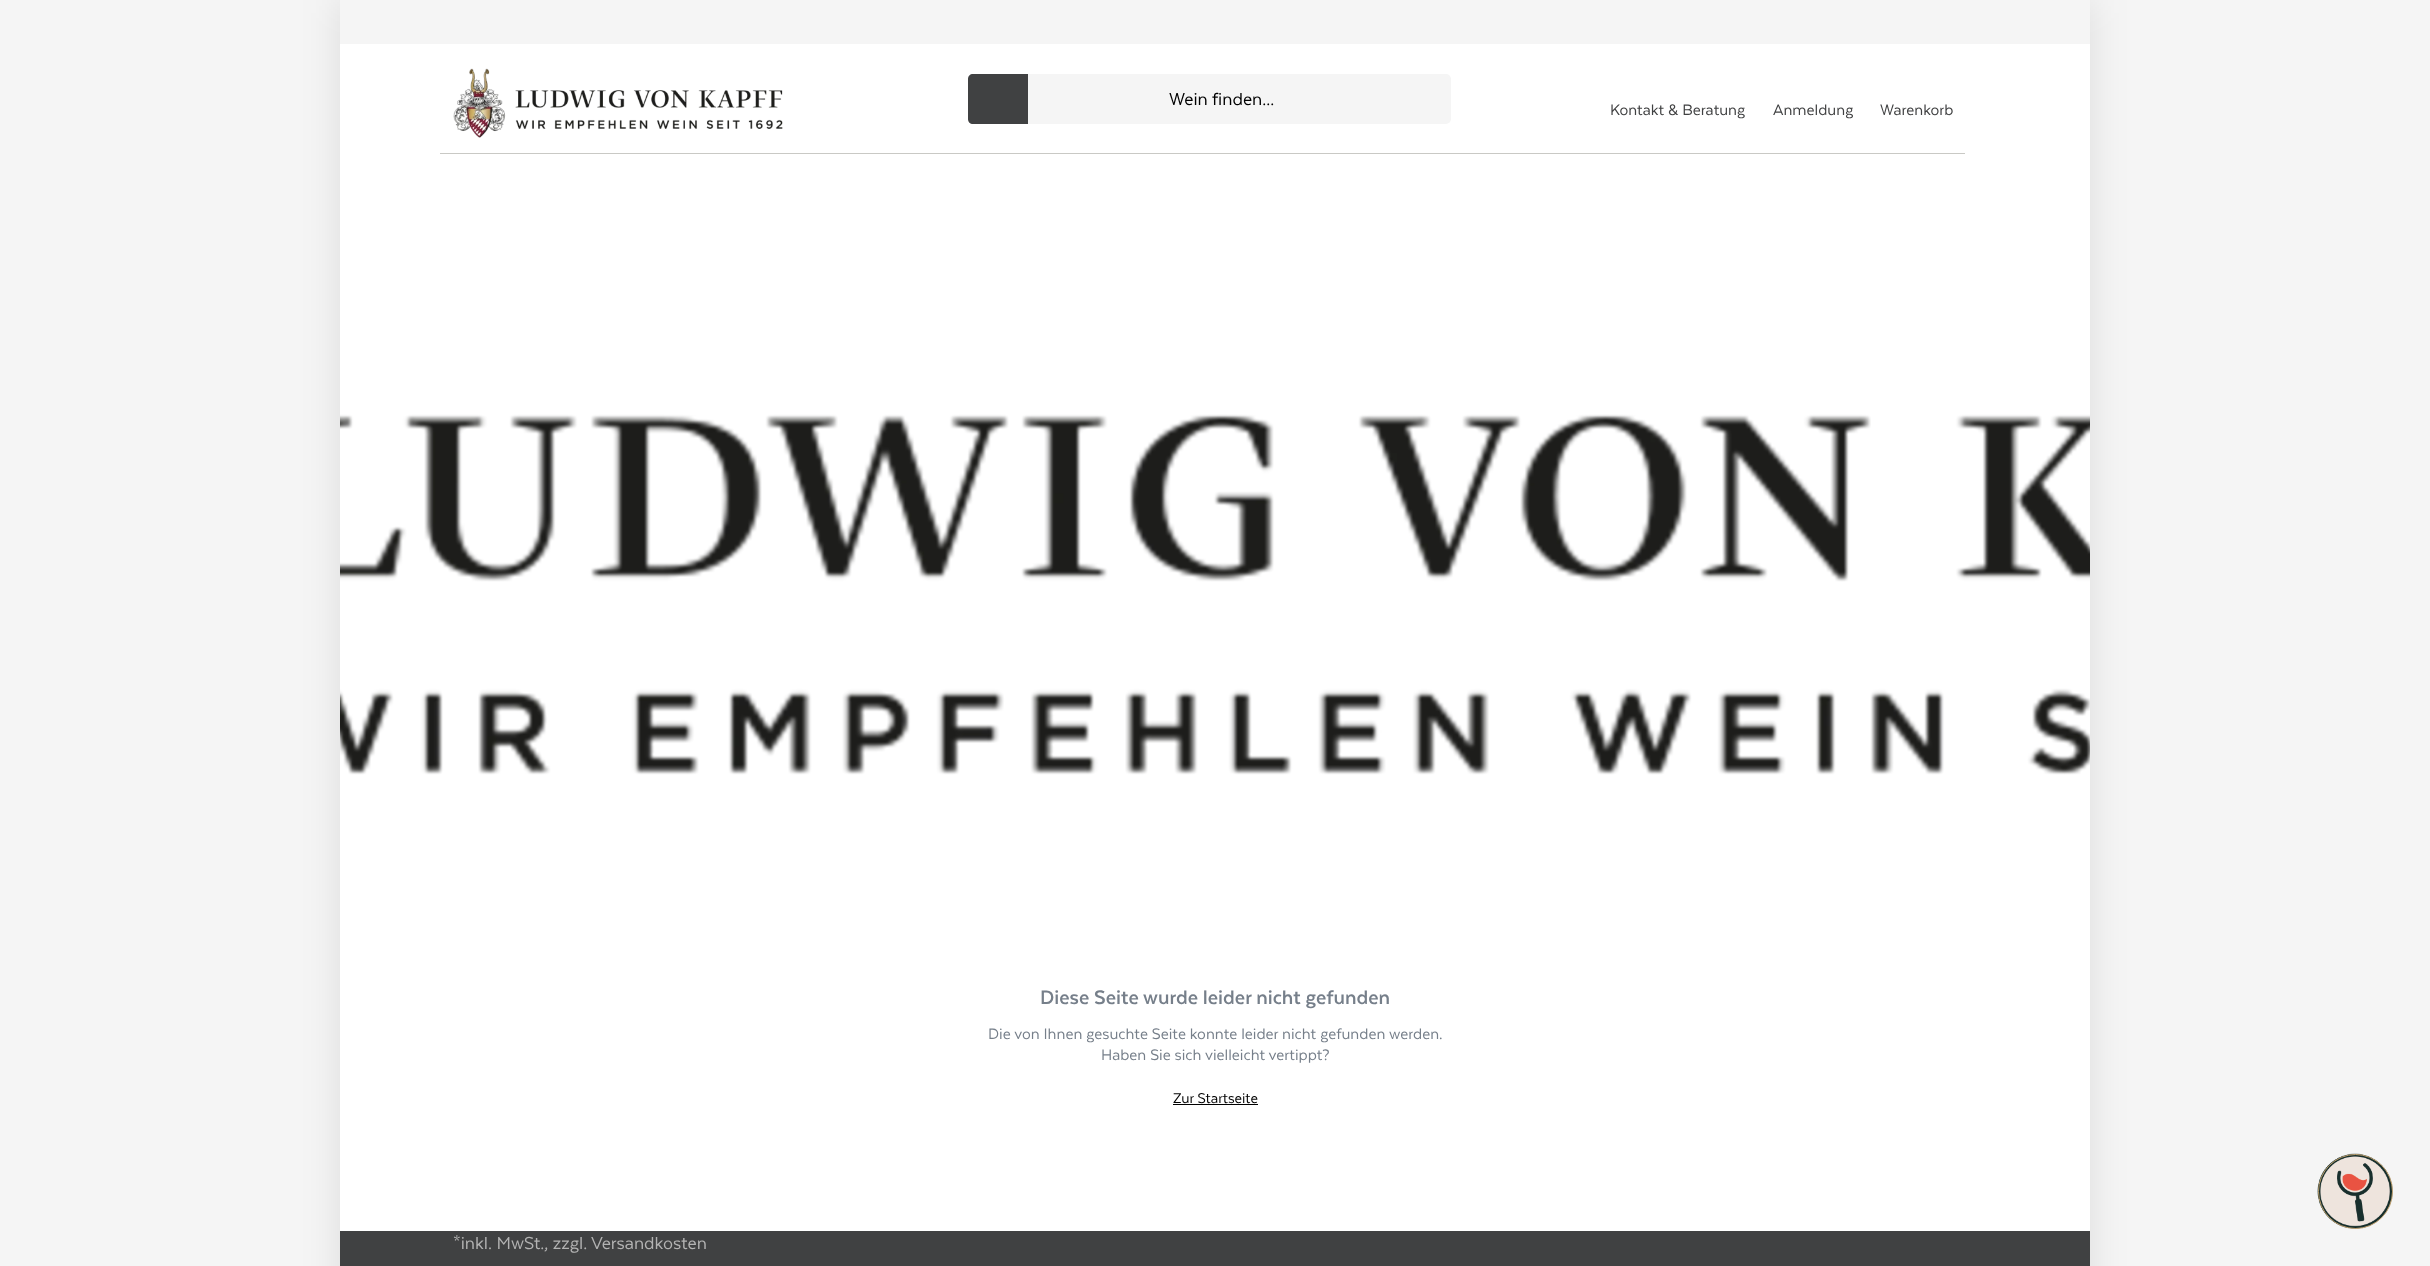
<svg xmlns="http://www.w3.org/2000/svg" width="2430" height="1266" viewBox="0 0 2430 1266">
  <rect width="100%" height="100%" fill="#f5f5f5"/>
  <path d="M340 0h1750v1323H340z" fill="#0000001a" filter="blur(19px)"/>
  <path d="M340 44h1750v1187H340z" fill="#fff"/>
  <path d="M340 0h1750v44H340z" fill="#f5f5f5"/>
  <image x="453" y="68" width="330" height="70" href="img/1.png"/>
  <rect x="968" y="74" width="483" height="50" rx="5" fill="#f5f5f5"/>
  <path d="M973 74H1028V124H973C970 124 968 122 968 119V79C968 76 970 74 973 74Z" fill="#404142"/>
  <path d="M440 153h1525v1H440z" fill="#c9c9c5"/>
  <image x="340" y="414" width="1750" height="361" href="img/2.png"/>
  <path d="M1173 1104h85v1H1173z" fill="#000"/>
  <path d="M340 1231h1750v35H340z" fill="#404142"/>
  <image x="2317" y="1153" width="76" height="76" href="img/3.png"/>
  <circle cx="2355.5" cy="1191.5" r="37" fill="none" stroke="#c0a06f"/>
  <text x="1169" y="105" font-family="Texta" font-size="20" fill="#000">Wein finden...</text>
  <g font-family="Texta" font-size="17.5" fill="#404142">
    <text x="1610" y="115">Kontakt &amp; Beratung</text>
    <text x="1773" y="115">Anmeldung</text>
    <text x="1880" y="115">Warenkorb</text>
  </g>
  <text x="1040" y="1004" font-family="Texta" font-size="22.5" font-weight="bold" fill="#767f8a">Diese Seite wurde leider nicht gefunden</text>
  <g font-family="Texta" font-size="17.5" fill="#767f8a">
    <text x="988" y="1039">Die von Ihnen gesuchte Seite konnte leider nicht gefunden werden.</text>
    <text x="1101" y="1060">Haben Sie sich vielleicht vertippt?</text>
  </g>
  <text x="1173" y="1103" font-family="Texta" font-size="16.25" fill="#000">Zur Startseite</text>
  <text x="453" y="1249" font-family="Texta" font-size="20" fill="#b3b3b3">*inkl. MwSt., zzgl. Versandkosten</text>
</svg>
